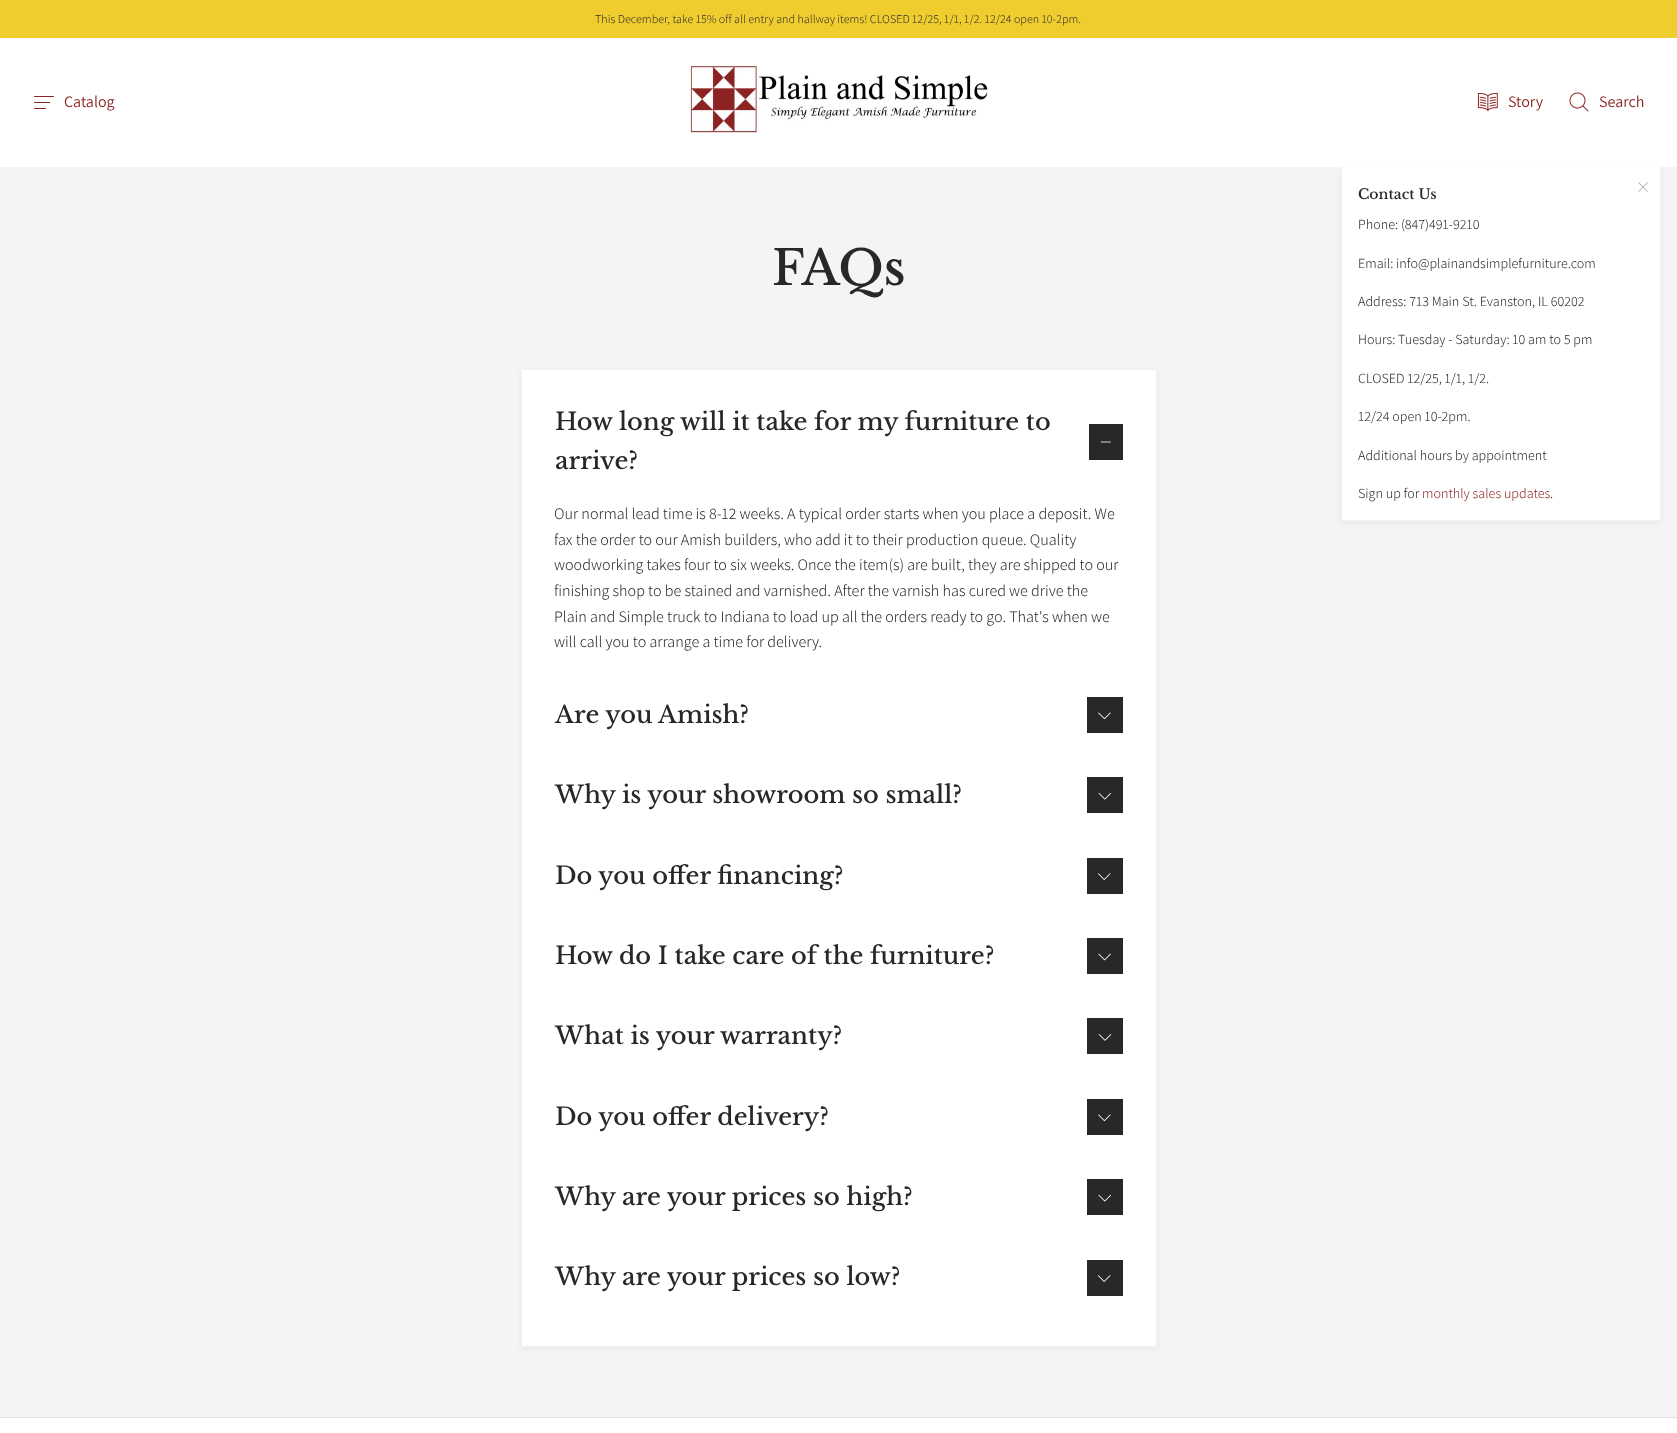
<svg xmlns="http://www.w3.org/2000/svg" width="1677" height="1433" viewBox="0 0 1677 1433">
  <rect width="100%" height="100%" fill="#fff"/>
  <path d="M0 0h1677v38H0z" fill="#f0cd2e"/>
  <path d="M0 167h1677v1250H0z" fill="#f4f4f4"/>
  <path d="M1341 168h320v355H1341z" fill="#0000000d" filter="blur(2.5px)"/>
  <path d="M1341.5 166.5h319v354H1341.5z" fill="#fff" stroke="#f2f2f2"/>
  <path d="M1341 166h320v1H1341z" fill="#fff"/>
  <image x="34" y="96" width="20" height="13" href="img/1.png"/>
  <image x="689" y="65" width="299" height="68" href="img/2.png"/>
  <image x="1477" y="92" width="21" height="19" href="img/3.png"/>
  <image x="1569" y="92" width="20" height="20" href="img/4.png"/>
  <image x="1638" y="182" width="10" height="10" href="img/5.png"/>
  <path d="M521 371h636v978H521z" fill="#0000000d" filter="blur(2.5px)"/>
  <path d="M521.5 369.5h635v977H521.5z" fill="#fff" stroke="#f2f2f2"/>
  <path d="M1089 424h34v36H1089z" fill="#26282a"/>
  <image x="1100" y="441" width="11" height="2" href="img/6.png"/>
  <path d="M1087 697h36v36H1087z" fill="#26282a"/>
  <image x="1098" y="712" width="13" height="8" href="img/7.png"/>
  <path d="M1087 777h36v36H1087z" fill="#26282a"/>
  <image x="1098" y="792" width="13" height="8" href="img/8.png"/>
  <path d="M1087 858h36v36H1087z" fill="#26282a"/>
  <image x="1098" y="873" width="13" height="7" href="img/9.png"/>
  <path d="M1087 938h36v36H1087z" fill="#26282a"/>
  <image x="1098" y="953" width="13" height="8" href="img/10.png"/>
  <path d="M1087 1018h36v36H1087z" fill="#26282a"/>
  <image x="1098" y="1034" width="14" height="7" href="img/11.png"/>
  <path d="M1087 1099h36v36H1087z" fill="#26282a"/>
  <image x="1098" y="1114" width="13" height="8" href="img/12.png"/>
  <path d="M1087 1179h36v36H1087z" fill="#26282a"/>
  <image x="1098" y="1194" width="13" height="8" href="img/13.png"/>
  <path d="M1087 1260h36v36H1087z" fill="#26282a"/>
  <image x="1097" y="1275" width="14" height="7" href="img/14.png"/>
  <path d="M0 1417h1677v1H0z" fill="#dfdfdf"/>
  <text x="595" y="23" font-family="Assistant" font-size="12" font-weight="300" fill="#313131">This December, take 15% off all entry and hallway items! CLOSED 12/25, 1/1, 1/2. 12/24 open 10-2pm.</text>
  <g font-family="Assistant" font-size="16" fill="#8c2424">
    <text x="64" y="107">Catalog</text>
    <text x="1508" y="107">Story</text>
    <text x="1599" y="107">Search</text>
  </g>
  <text x="1358" y="199" font-family="Libre Baskerville" font-size="14" font-weight="500" fill="#26282a">Contact Us</text>
  <g font-family="Assistant" font-size="14" font-weight="300" fill="#26282a">
    <text x="1358" y="229">Phone: (847)491-9210</text>
    <text x="1358" y="268">Email: info@plainandsimplefurniture.com</text>
    <text x="1358" y="306">Address: 713 Main St. Evanston, IL 60202</text>
    <text x="1358" y="344">Hours: Tuesday - Saturday: 10 am to 5 pm</text>
    <text x="1358" y="383">CLOSED 12/25, 1/1, 1/2.</text>
    <text x="1358" y="421">12/24 open 10-2pm.</text>
    <text x="1358" y="460">Additional hours by appointment</text>
    <text x="1358" y="498">Sign up for</text>
  </g>
  <text x="1422" y="498" font-family="Assistant" font-size="14" font-weight="300" fill="#8c2424">monthly sales updates</text>
  <text x="1550" y="498" font-family="Assistant" font-size="14" font-weight="300" fill="#26282a">.</text>
  <text x="772" y="285" font-family="Libre Baskerville" font-size="48" font-weight="500" fill="#26282a">FAQs</text>
  <g font-family="Libre Baskerville" font-size="24" font-weight="500" fill="#26282a">
    <text x="555" y="430">How long will it take for my furniture to</text>
    <text x="555" y="469">arrive?</text>
  </g>
  <g font-family="Assistant" font-size="16" font-weight="300" fill="#26282a">
    <text x="554" y="519">Our normal lead time is 8-12 weeks. A typical order starts when you place a deposit. We</text>
    <text x="554" y="545">fax the order to our Amish builders, who add it to their production queue. Quality</text>
    <text x="554" y="570">woodworking takes four to six weeks. Once the item(s) are built, they are shipped to our</text>
    <text x="554" y="596">finishing shop to be stained and varnished. After the varnish has cured we drive the</text>
    <text x="554" y="622">Plain and Simple truck to Indiana to load up all the orders ready to go. That's when we</text>
    <text x="554" y="647">will call you to arrange a time for delivery.</text>
  </g>
  <g font-family="Libre Baskerville" font-size="24" font-weight="500" fill="#26282a">
    <text x="555" y="723">Are you Amish?</text>
    <text x="555" y="803">Why is your showroom so small?</text>
    <text x="555" y="884">Do you offer financing?</text>
    <text x="555" y="964">How do I take care of the furniture?</text>
    <text x="555" y="1044">What is your warranty?</text>
    <text x="555" y="1125">Do you offer delivery?</text>
    <text x="555" y="1205">Why are your prices so high?</text>
    <text x="555" y="1285">Why are your prices so low?</text>
  </g>
</svg>
